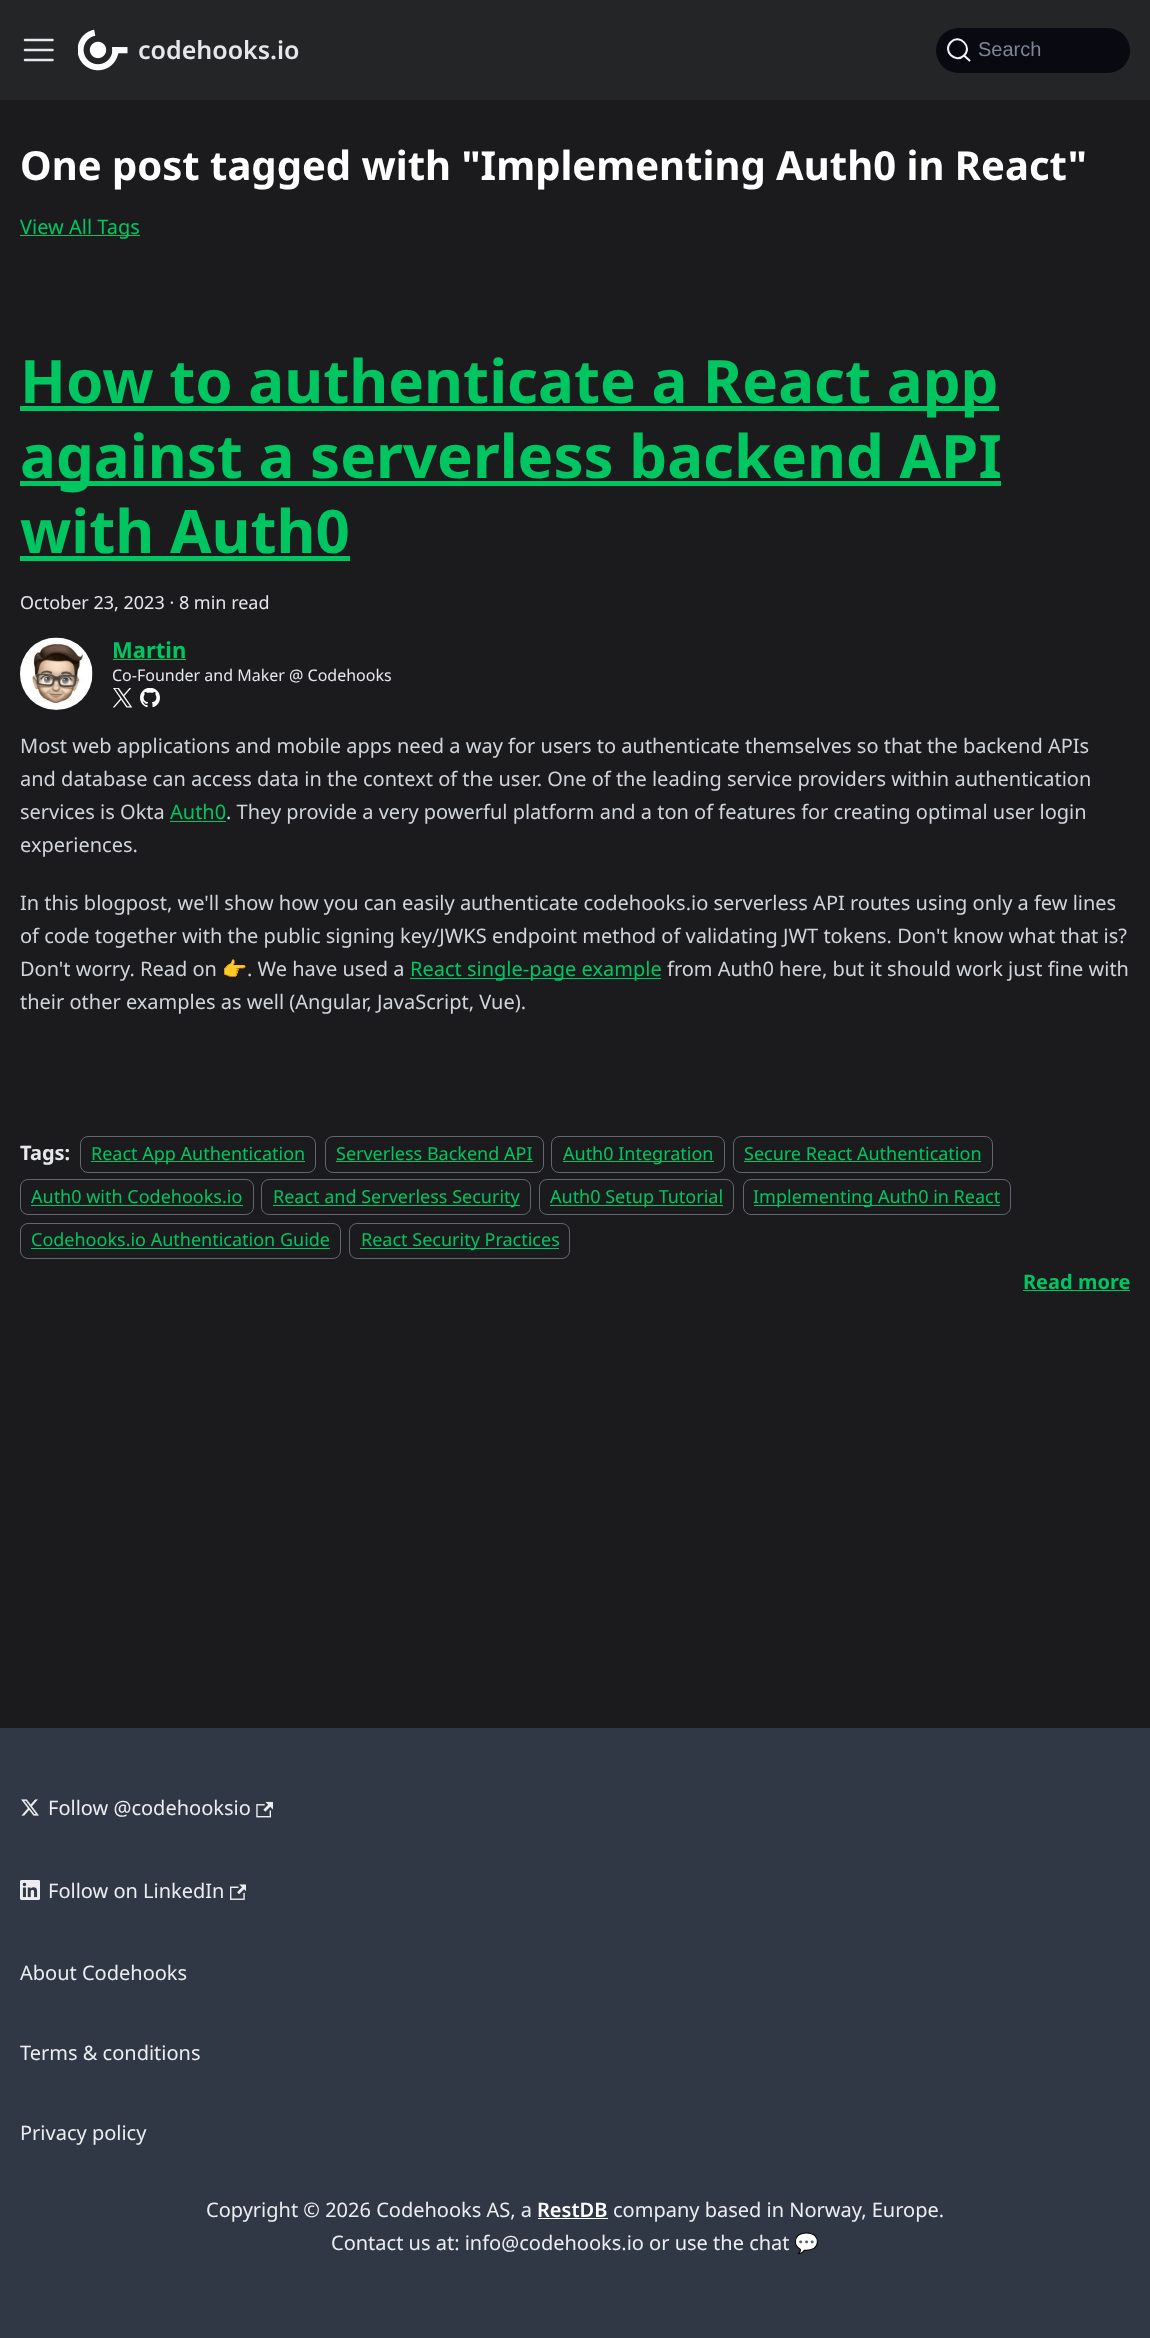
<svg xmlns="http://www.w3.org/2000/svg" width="1150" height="2338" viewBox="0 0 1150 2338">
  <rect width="100%" height="100%" fill="#1b1b1d"/>
  <path d="M0 0h1150v100H0z" fill="#242526"/>
  <path d="M25 40H52.5M25 50H52.5M25 60H52.5" fill="none" stroke="#e5e7eb" stroke-width="2.5" stroke-linecap="round"/>
  <image x="78" y="29" width="50" height="42" href="img/1.png"/>
  <rect x="936" y="28" width="194" height="45" rx="22.5" fill="#090a11"/>
  <path d="M964 55.5L969.5 60.5L964 55.5C955.5 64 942 51 951 42C959.5 33.5 973 47 964 55.5Z" fill="none" stroke="#f5f6f7" stroke-width="2" stroke-linecap="round" stroke-linejoin="round"/>
  <path d="M20 235h120v1H20z" fill="#00c662"/>
  <path d="M20 406h979v5H20z" fill="#00c662"/>
  <path d="M20 481h981v5H20z" fill="#00c662"/>
  <path d="M20 556h330v5H20z" fill="#00c662"/>
  <image x="20" y="637" width="73" height="73" href="img/2.png"/>
  <path d="M113 659h73v1H113z" fill="#00c662"/>
  <image x="113" y="688" width="20" height="20" href="img/3.png"/>
  <image x="140" y="688" width="20" height="20" href="img/4.png"/>
  <path d="M170 821h56v1H170z" fill="#00c662"/>
  <path d="M410 978h251v1H410z" fill="#00c662"/>
  <rect x="80.5" y="1136.5" width="235" height="36" rx="7.5" fill="none" stroke="#606770"/>
  <path d="M91 1161h214v1H91z" fill="#00c662"/>
  <rect x="325.5" y="1136.5" width="218" height="36" rx="7.5" fill="none" stroke="#606770"/>
  <path d="M336 1161h197v1H336z" fill="#00c662"/>
  <rect x="551.5" y="1136.5" width="173" height="36" rx="7.5" fill="none" stroke="#606770"/>
  <path d="M563 1161h151v1H563z" fill="#00c662"/>
  <rect x="733.5" y="1136.5" width="259" height="36" rx="7.5" fill="none" stroke="#606770"/>
  <path d="M744 1161h237v1H744z" fill="#00c662"/>
  <rect x="20.5" y="1179.5" width="233" height="35" rx="7.5" fill="none" stroke="#606770"/>
  <path d="M31 1205h212v1H31z" fill="#00c662"/>
  <rect x="261.5" y="1179.5" width="269" height="35" rx="7.5" fill="none" stroke="#606770"/>
  <path d="M273 1205h247v1H273z" fill="#00c662"/>
  <rect x="539.5" y="1179.5" width="194" height="35" rx="7.5" fill="none" stroke="#606770"/>
  <path d="M550 1205h173v1H550z" fill="#00c662"/>
  <rect x="743.5" y="1179.5" width="267" height="35" rx="7.5" fill="none" stroke="#606770"/>
  <path d="M754 1205h246v1H754z" fill="#00c662"/>
  <rect x="20.5" y="1223.5" width="320" height="35" rx="7.5" fill="none" stroke="#606770"/>
  <path d="M31 1248h299v1H31z" fill="#00c662"/>
  <rect x="349.5" y="1223.5" width="220" height="35" rx="7.5" fill="none" stroke="#606770"/>
  <path d="M360 1248h199v1H360z" fill="#00c662"/>
  <path d="M1023 1290h107v1H1023z" fill="#00c662"/>
  <path d="M0 1728h1150v610H0z" fill="#303846"/>
  <image x="21" y="1799" width="18" height="17" href="img/5.png"/>
  <image x="256" y="1801" width="17" height="17" href="img/6.png"/>
  <image x="20" y="1880" width="20" height="20" href="img/7.png"/>
  <image x="230" y="1884" width="16" height="16" href="img/8.png"/>
  <path d="M538 2218h70v1H538z" fill="#fff"/>
  <text x="138" y="59" font-family="Noto Sans" font-size="25" font-weight="600" fill="#e5e7eb">codehooks.io</text>
  <text x="978" y="56" font-family="Liberation Sans" font-size="20" fill="#7f8497">Search</text>
  <text x="20" y="180" font-family="Noto Sans" font-size="40" font-weight="bold" fill="#fff">One post tagged with "Implementing Auth0 in React"</text>
  <text x="20" y="234" font-family="Noto Sans" font-size="20" fill="#00c662">View All Tags</text>
  <g font-family="Noto Sans" font-size="60" font-weight="bold" fill="#00c662">
    <text x="20" y="403">How to authenticate a React app</text>
    <text x="20" y="478">against a serverless backend API</text>
    <text x="20" y="553">with Auth0</text>
  </g>
  <text x="20" y="609" font-family="Noto Sans" font-size="18" fill="#e5e7eb">October 23, 2023 · 8 min read</text>
  <text x="112" y="658" font-family="Noto Sans" font-size="22" font-weight="bold" fill="#00c662">Martin</text>
  <text x="112" y="681" font-family="Noto Sans" font-size="16" fill="#e5e7eb">Co-Founder and Maker @ Codehooks</text>
  <g font-family="Noto Sans" font-size="20" fill="#d1d5db">
    <text x="20" y="753">Most web applications and mobile apps need a way for users to authenticate themselves so that the backend APIs</text>
    <text x="20" y="786">and database can access data in the context of the user. One of the leading service providers within authentication</text>
    <text x="20" y="819">services is Okta</text>
  </g>
  <text x="170" y="819" font-family="Noto Sans" font-size="20" fill="#00c662">Auth0</text>
  <g font-family="Noto Sans" font-size="20" fill="#d1d5db">
    <text x="226" y="819">. They provide a very powerful platform and a ton of features for creating optimal user login</text>
    <text x="20" y="852">experiences.</text>
    <text x="20" y="910">In this blogpost, we'll show how you can easily authenticate codehooks.io serverless API routes using only a few lines</text>
    <text x="20" y="943">of code together with the public signing key/JWKS endpoint method of validating JWT tokens. Don't know what that is?</text>
    <text x="20" y="976">Don't worry. Read on</text>
  </g>
  <text x="222" y="976" font-family="Noto Color Emoji" font-size="20" fill="#d1d5db">👉</text>
  <text x="247" y="976" font-family="Noto Sans" font-size="20" fill="#d1d5db">. We have used a</text>
  <text x="410" y="976" font-family="Noto Sans" font-size="20" fill="#00c662">React single-page example</text>
  <g font-family="Noto Sans" font-size="20" fill="#d1d5db">
    <text x="667" y="976">from Auth0 here, but it should work just fine with</text>
    <text x="20" y="1009">their other examples as well (Angular, JavaScript, Vue).</text>
  </g>
  <text x="20" y="1160" font-family="Noto Sans" font-size="20" font-weight="bold" fill="#e5e7eb">Tags:</text>
  <g font-family="Noto Sans" font-size="18" fill="#00c662">
    <text x="91" y="1160">React App Authentication</text>
    <text x="336" y="1160">Serverless Backend API</text>
    <text x="563" y="1160">Auth0 Integration</text>
    <text x="744" y="1160">Secure React Authentication</text>
    <text x="31" y="1203">Auth0 with Codehooks.io</text>
    <text x="273" y="1203">React and Serverless Security</text>
    <text x="550" y="1203">Auth0 Setup Tutorial</text>
    <text x="753" y="1203">Implementing Auth0 in React</text>
    <text x="31" y="1246">Codehooks.io Authentication Guide</text>
    <text x="361" y="1246">React Security Practices</text>
  </g>
  <text x="1023" y="1289" font-family="Noto Sans" font-size="20" font-weight="bold" fill="#00c662">Read more</text>
  <g font-family="Noto Sans" font-size="20" fill="#ebedf0">
    <text x="48" y="1815">Follow @codehooksio</text>
    <text x="48" y="1898">Follow on LinkedIn</text>
    <text x="20" y="1980">About Codehooks</text>
    <text x="20" y="2060">Terms &amp; conditions</text>
    <text x="20" y="2140">Privacy policy</text>
    <text x="206" y="2217">Copyright © 2026 Codehooks AS, a</text>
  </g>
  <text x="537" y="2217" font-family="Noto Sans" font-size="20" font-weight="600" fill="#fff">RestDB</text>
  <g font-family="Noto Sans" font-size="20" fill="#ebedf0">
    <text x="613" y="2217">company based in Norway, Europe.</text>
    <text x="331" y="2250">Contact us at: info@codehooks.io or use the chat</text>
  </g>
  <text x="794" y="2250" font-family="Noto Color Emoji" font-size="20" fill="#ebedf0">💬</text>
</svg>
